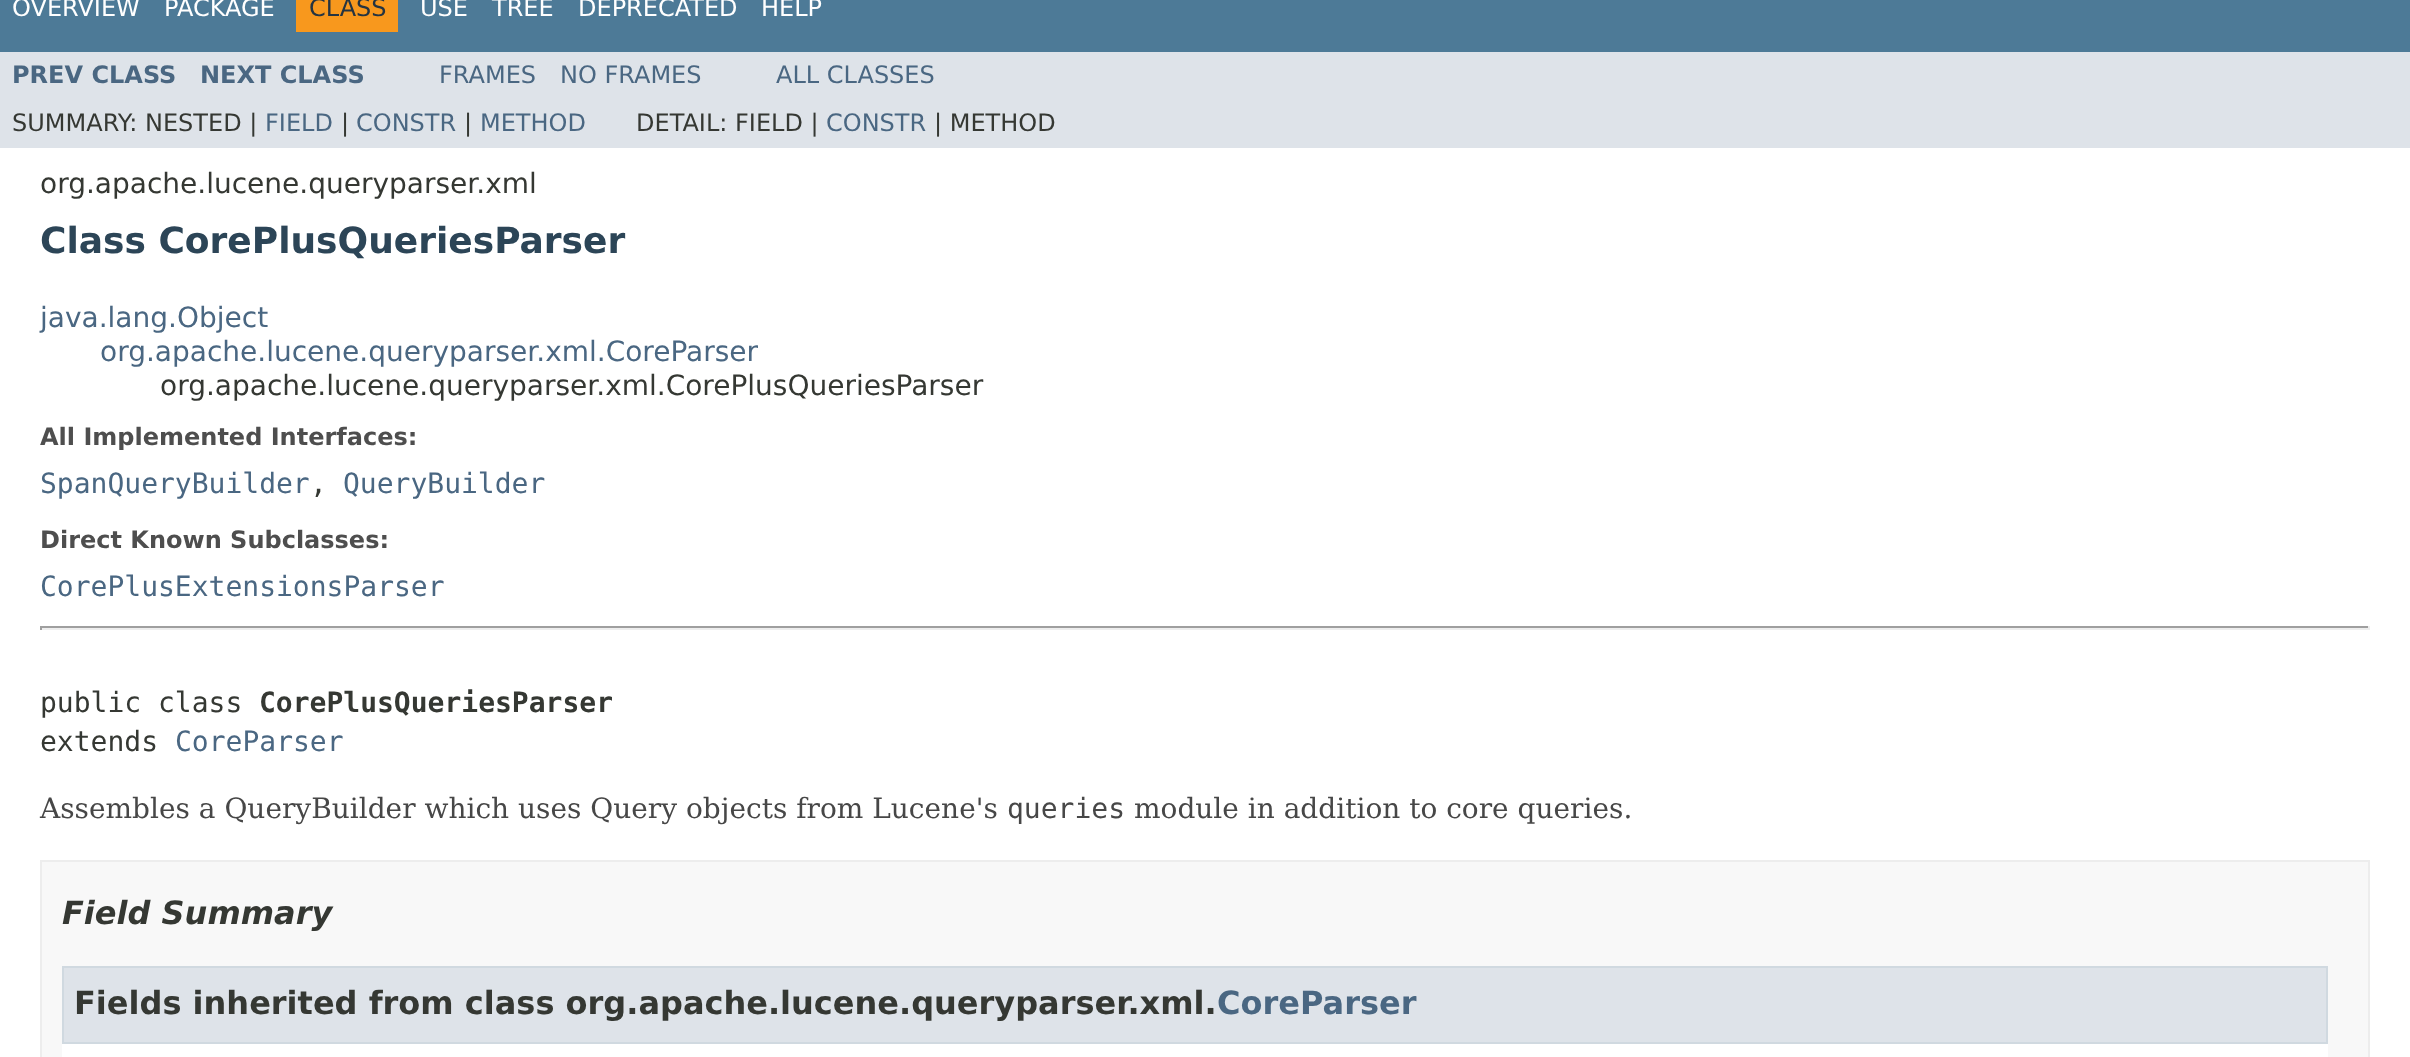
<svg xmlns="http://www.w3.org/2000/svg" width="2410" height="1057" viewBox="0 0 2410 1057">
  <rect width="100%" height="100%" fill="#fff"/>
  <path d="M0 0h2410v52H0z" fill="#4d7a97"/>
  <path d="M296 0h102v32H296z" fill="#f8981d"/>
  <path d="M0 52h2410v96H0z" fill="#dee3e9"/>
  <path d="M40 626h2330v2H40z" fill="#9f9f9f"/>
  <path d="M2368 626h2v4H2368z" fill="#eee"/>
  <path d="M40 628h2330v2H40z" fill="#eee"/>
  <path d="M40 626h2v4H40z" fill="#9f9f9f"/>
  <path d="M41 861h2328v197H41z" fill="#f8f8f8" stroke="#ededed" stroke-width="2"/>
  <path d="M62 1044h2266v13H62z" fill="#fff"/>
  <path d="M63 967h2264v76H63z" fill="#dee3e9" stroke="#d0d9e0" stroke-width="2"/>
  <g font-family="DejaVu Sans" font-size="24" fill="#fff">
    <text x="12" y="16">OVERVIEW</text>
    <text x="164" y="16">PACKAGE</text>
  </g>
  <text x="309" y="16" font-family="DejaVu Sans" font-size="24" fill="#253441">CLASS</text>
  <g font-family="DejaVu Sans" font-size="24" fill="#fff">
    <text x="420" y="16">USE</text>
    <text x="492" y="16">TREE</text>
    <text x="578" y="16">DEPRECATED</text>
    <text x="761" y="16">HELP</text>
  </g>
  <g font-family="DejaVu Sans" font-size="24" font-weight="bold" fill="#4a6782">
    <text x="12" y="83">PREV CLASS</text>
    <text x="200" y="83">NEXT CLASS</text>
  </g>
  <g font-family="DejaVu Sans" font-size="24" fill="#4a6782">
    <text x="439" y="83">FRAMES</text>
    <text x="560" y="83">NO FRAMES</text>
    <text x="776" y="83">ALL CLASSES</text>
  </g>
  <text x="12" y="131" font-family="DejaVu Sans" font-size="24" fill="#353833">SUMMARY: NESTED |</text>
  <text x="265" y="131" font-family="DejaVu Sans" font-size="24" fill="#4a6782">FIELD</text>
  <text x="341" y="131" font-family="DejaVu Sans" font-size="24" fill="#353833">|</text>
  <text x="356" y="131" font-family="DejaVu Sans" font-size="24" fill="#4a6782">CONSTR</text>
  <text x="464" y="131" font-family="DejaVu Sans" font-size="24" fill="#353833">|</text>
  <text x="480" y="131" font-family="DejaVu Sans" font-size="24" fill="#4a6782">METHOD</text>
  <text x="636" y="131" font-family="DejaVu Sans" font-size="24" fill="#353833">DETAIL: FIELD |</text>
  <text x="826" y="131" font-family="DejaVu Sans" font-size="24" fill="#4a6782">CONSTR</text>
  <text x="934" y="131" font-family="DejaVu Sans" font-size="24" fill="#353833">| METHOD</text>
  <text x="40" y="193" font-family="DejaVu Sans" font-size="28" fill="#353833">org.apache.lucene.queryparser.xml</text>
  <text x="40" y="253" font-family="DejaVu Sans" font-size="36" font-weight="bold" fill="#2c4557">Class CorePlusQueriesParser</text>
  <g font-family="DejaVu Sans" font-size="28" fill="#4a6782">
    <text x="40" y="327">java.lang.Object</text>
    <text x="100" y="361">org.apache.lucene.queryparser.xml.CoreParser</text>
  </g>
  <text x="160" y="395" font-family="DejaVu Sans" font-size="28" fill="#353833">org.apache.lucene.queryparser.xml.CorePlusQueriesParser</text>
  <text x="40" y="445" font-family="DejaVu Sans" font-size="24" font-weight="bold" fill="#4e4e4e">All Implemented Interfaces:</text>
  <text x="40" y="493" font-family="DejaVu Sans Mono" font-size="28" fill="#4a6782">SpanQueryBuilder</text>
  <text x="310" y="493" font-family="DejaVu Sans Mono" font-size="28" fill="#353833">,</text>
  <text x="343" y="493" font-family="DejaVu Sans Mono" font-size="28" fill="#4a6782">QueryBuilder</text>
  <text x="40" y="548" font-family="DejaVu Sans" font-size="24" font-weight="bold" fill="#4e4e4e">Direct Known Subclasses:</text>
  <text x="40" y="596" font-family="DejaVu Sans Mono" font-size="28" fill="#4a6782">CorePlusExtensionsParser</text>
  <text x="40" y="712" font-family="DejaVu Sans Mono" font-size="28" fill="#353833">public class</text>
  <text x="259" y="712" font-family="DejaVu Sans Mono" font-size="28" font-weight="bold" fill="#353833">CorePlusQueriesParser</text>
  <text x="40" y="751" font-family="DejaVu Sans Mono" font-size="28" fill="#353833">extends</text>
  <text x="175" y="751" font-family="DejaVu Sans Mono" font-size="28" fill="#4a6782">CoreParser</text>
  <text x="40" y="818" font-family="DejaVu Serif" font-size="28" fill="#474747">Assembles a QueryBuilder which uses Query objects from Lucene's</text>
  <text x="1007" y="818" font-family="DejaVu Sans Mono" font-size="28" fill="#474747">queries</text>
  <text x="1134" y="818" font-family="DejaVu Serif" font-size="28" fill="#474747">module in addition to core queries.</text>
  <text x="62" y="924" font-family="DejaVu Sans" font-size="32" font-weight="bold" font-style="italic" fill="#353833">Field Summary</text>
  <text x="74" y="1014" font-family="DejaVu Sans" font-size="32" font-weight="bold" fill="#353833">Fields inherited from class org.apache.lucene.queryparser.xml.</text>
  <text x="1217" y="1014" font-family="DejaVu Sans" font-size="32" font-weight="bold" fill="#4a6782">CoreParser</text>
</svg>
